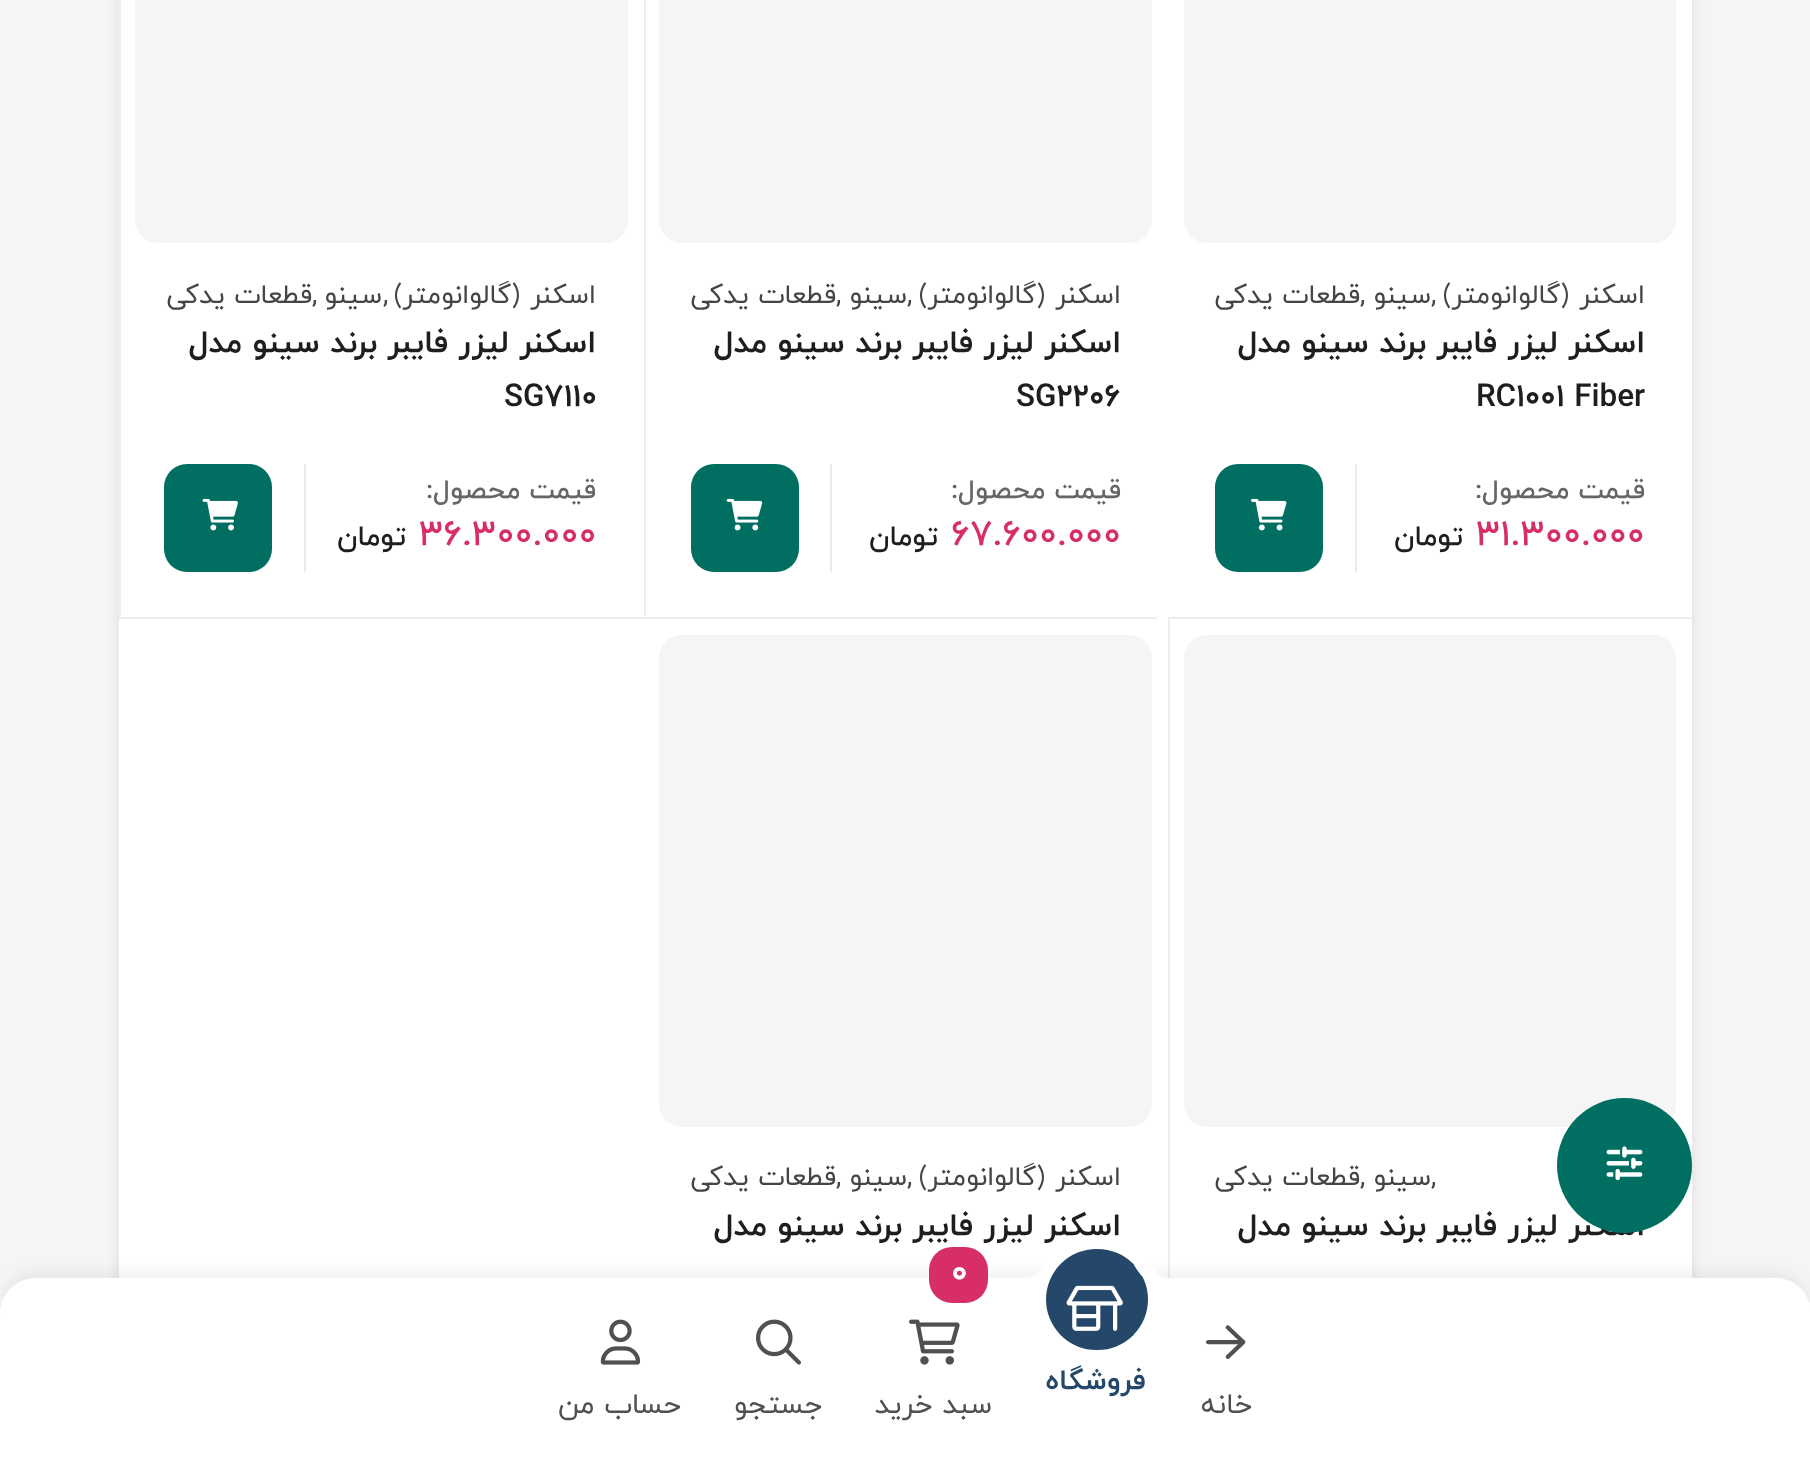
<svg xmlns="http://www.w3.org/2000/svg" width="1810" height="1457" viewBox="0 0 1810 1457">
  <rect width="100%" height="100%" fill="#f5f5f5"/>
  <rect x="119" y="-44" width="1573" height="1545" rx="23" fill="#0000001a" filter="blur(7px)"/>
  <path d="M119 0h1573v1278H119z" fill="#fff"/>
  <rect x="1184" y="-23" width="492" height="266" rx="23" fill="#f5f5f5"/>
  <path d="M1355 464h2v108H1355z" fill="#ebebeb"/>
  <rect x="1215" y="464" width="108" height="108" rx="23" fill="#006f62"/>
  <image x="1251" y="498" width="36" height="33" href="img/1.png"/>
  <path d="M1168 617h524v2H1168z" fill="#eee"/>
  <rect x="659" y="-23" width="493" height="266" rx="23" fill="#f5f5f5"/>
  <path d="M119 617h1038v2H119z" fill="#eee"/>
  <path d="M644 0h2v619H644z" fill="#eee"/>
  <path d="M830 464h2v108H830z" fill="#ebebeb"/>
  <rect x="691" y="464" width="108" height="108" rx="23" fill="#006f62"/>
  <image x="726" y="498" width="37" height="33" href="img/2.png"/>
  <rect x="135" y="-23" width="493" height="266" rx="23" fill="#f5f5f5"/>
  <path d="M119 0h2v619H119z" fill="#eee"/>
  <path d="M304 464h2v108H304z" fill="#ebebeb"/>
  <rect x="164" y="464" width="108" height="108" rx="23" fill="#006f62"/>
  <image x="202" y="498" width="36" height="33" href="img/3.png"/>
  <rect x="1184" y="635" width="492" height="492" rx="23" fill="#f5f5f5"/>
  <path d="M1168 619h2v659H1168z" fill="#eee"/>
  <rect x="659" y="635" width="493" height="492" rx="23" fill="#f5f5f5"/>
  <rect y="1271" width="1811" height="180" rx="36" fill="#0000000d" filter="blur(7px)"/>
  <path d="M36 1278H1775C1795 1278 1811 1294 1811 1314V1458H0V1314C0 1294 16 1278 36 1278Z" fill="#fff"/>
  <rect x="929" y="1247" width="59" height="56" rx="23" fill="#d72f65"/>
  <image x="909" y="1319" width="51" height="46" href="img/6.png"/>
  <image x="1206" y="1325" width="40" height="34" href="img/7.png"/>
  <image x="756" y="1319" width="45" height="46" href="img/8.png"/>
  <image x="600" y="1319" width="41" height="46" href="img/9.png"/>
  <text x="1645" y="303" word-spacing="2" font-family="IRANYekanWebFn" font-size="27" letter-spacing="-0.1" direction="rtl" fill="#454545">اسکنر (گالوانومتر)</text>
  <text x="1431" y="303" font-family="IRANYekanWebFn" font-size="27" letter-spacing="-0.1" fill="#454545">,</text>
  <text x="1431" y="303" font-family="IRANYekanWebFn" font-size="27" letter-spacing="-0.1" direction="rtl" fill="#454545">سینو</text>
  <text x="1360" y="303" font-family="IRANYekanWebFn" font-size="27" letter-spacing="-0.1" fill="#454545">,</text>
  <text x="1360" y="303" word-spacing="1" font-family="IRANYekanWebFn" font-size="27" letter-spacing="-0.1" direction="rtl" fill="#454545">قطعات یدکی</text>
  <text x="1645" y="352" word-spacing="0.5" font-family="IRANYekanWebFn" font-size="31.5" font-weight="bold" letter-spacing="-0.1" direction="rtl" fill="#1e1e1e">اسکنر لیزر فایبر برند سینو مدل</text>
  <text x="1476" y="406" font-family="IRANYekanWebFn" font-size="31.5" font-weight="bold" letter-spacing="-0.1" fill="#1e1e1e">RC1001 Fiber</text>
  <text x="1645" y="498" word-spacing="1" font-family="IRANYekanWebFn" font-size="27" font-weight="500" letter-spacing="-0.1" direction="rtl" fill="#666">قیمت محصول:</text>
  <text x="1476" y="545" font-family="IRANYekanWebFn" font-size="36" font-weight="500" letter-spacing="-0.1" fill="#d72f65">31.300.000</text>
  <text x="1463" y="545" font-family="IRANYekanWebFn" font-size="28.5" font-weight="500" letter-spacing="-0.1" direction="rtl" fill="#1e1e1e">تومان</text>
  <text x="1121" y="303" word-spacing="2" font-family="IRANYekanWebFn" font-size="27" letter-spacing="-0.1" direction="rtl" fill="#454545">اسکنر (گالوانومتر)</text>
  <text x="907" y="303" font-family="IRANYekanWebFn" font-size="27" letter-spacing="-0.1" fill="#454545">,</text>
  <text x="907" y="303" font-family="IRANYekanWebFn" font-size="27" letter-spacing="-0.1" direction="rtl" fill="#454545">سینو</text>
  <text x="836" y="303" font-family="IRANYekanWebFn" font-size="27" letter-spacing="-0.1" fill="#454545">,</text>
  <text x="836" y="303" word-spacing="1" font-family="IRANYekanWebFn" font-size="27" letter-spacing="-0.1" direction="rtl" fill="#454545">قطعات یدکی</text>
  <text x="1121" y="352" word-spacing="0.5" font-family="IRANYekanWebFn" font-size="31.5" font-weight="bold" letter-spacing="-0.1" direction="rtl" fill="#1e1e1e">اسکنر لیزر فایبر برند سینو مدل</text>
  <text x="1016" y="406" font-family="IRANYekanWebFn" font-size="31.5" font-weight="bold" letter-spacing="-0.1" fill="#1e1e1e">SG2206</text>
  <text x="1121" y="498" word-spacing="1" font-family="IRANYekanWebFn" font-size="27" font-weight="500" letter-spacing="-0.1" direction="rtl" fill="#666">قیمت محصول:</text>
  <text x="951" y="545" font-family="IRANYekanWebFn" font-size="36" font-weight="500" letter-spacing="-0.1" fill="#d72f65">67.600.000</text>
  <text x="938" y="545" font-family="IRANYekanWebFn" font-size="28.5" font-weight="500" letter-spacing="-0.1" direction="rtl" fill="#1e1e1e">تومان</text>
  <text x="596" y="303" word-spacing="2" font-family="IRANYekanWebFn" font-size="27" letter-spacing="-0.1" direction="rtl" fill="#454545">اسکنر (گالوانومتر)</text>
  <text x="383" y="303" font-family="IRANYekanWebFn" font-size="27" letter-spacing="-0.1" fill="#454545">,</text>
  <text x="382" y="303" font-family="IRANYekanWebFn" font-size="27" letter-spacing="-0.1" direction="rtl" fill="#454545">سینو</text>
  <text x="312" y="303" font-family="IRANYekanWebFn" font-size="27" letter-spacing="-0.1" fill="#454545">,</text>
  <text x="312" y="303" word-spacing="1" font-family="IRANYekanWebFn" font-size="27" letter-spacing="-0.1" direction="rtl" fill="#454545">قطعات یدکی</text>
  <text x="596" y="352" word-spacing="0.5" font-family="IRANYekanWebFn" font-size="31.5" font-weight="bold" letter-spacing="-0.1" direction="rtl" fill="#1e1e1e">اسکنر لیزر فایبر برند سینو مدل</text>
  <text x="504" y="406" font-family="IRANYekanWebFn" font-size="31.5" font-weight="bold" letter-spacing="-0.1" fill="#1e1e1e">SG7110</text>
  <text x="596" y="498" word-spacing="1" font-family="IRANYekanWebFn" font-size="27" font-weight="500" letter-spacing="-0.1" direction="rtl" fill="#666">قیمت محصول:</text>
  <text x="419" y="545" font-family="IRANYekanWebFn" font-size="36" font-weight="500" letter-spacing="-0.1" fill="#d72f65">36.300.000</text>
  <text x="406" y="545" font-family="IRANYekanWebFn" font-size="28.5" font-weight="500" letter-spacing="-0.1" direction="rtl" fill="#1e1e1e">تومان</text>
  <text x="1431" y="1185" font-family="IRANYekanWebFn" font-size="27" letter-spacing="-0.1" fill="#454545">,</text>
  <text x="1431" y="1185" font-family="IRANYekanWebFn" font-size="27" letter-spacing="-0.1" direction="rtl" fill="#454545">سینو</text>
  <text x="1360" y="1185" font-family="IRANYekanWebFn" font-size="27" letter-spacing="-0.1" fill="#454545">,</text>
  <text x="1360" y="1185" word-spacing="1" font-family="IRANYekanWebFn" font-size="27" letter-spacing="-0.1" direction="rtl" fill="#454545">قطعات یدکی</text>
  <text x="1645" y="1235" word-spacing="0.5" font-family="IRANYekanWebFn" font-size="31.5" font-weight="bold" letter-spacing="-0.1" direction="rtl" fill="#1e1e1e">اسکنر لیزر فایبر برند سینو مدل</text>
  <text x="1121" y="1185" word-spacing="2" font-family="IRANYekanWebFn" font-size="27" letter-spacing="-0.1" direction="rtl" fill="#454545">اسکنر (گالوانومتر)</text>
  <text x="907" y="1185" font-family="IRANYekanWebFn" font-size="27" letter-spacing="-0.1" fill="#454545">,</text>
  <text x="907" y="1185" font-family="IRANYekanWebFn" font-size="27" letter-spacing="-0.1" direction="rtl" fill="#454545">سینو</text>
  <text x="836" y="1185" font-family="IRANYekanWebFn" font-size="27" letter-spacing="-0.1" fill="#454545">,</text>
  <text x="836" y="1185" word-spacing="1" font-family="IRANYekanWebFn" font-size="27" letter-spacing="-0.1" direction="rtl" fill="#454545">قطعات یدکی</text>
  <text x="1121" y="1235" word-spacing="0.5" font-family="IRANYekanWebFn" font-size="31.5" font-weight="bold" letter-spacing="-0.1" direction="rtl" fill="#1e1e1e">اسکنر لیزر فایبر برند سینو مدل</text>
  <circle cx="1624.5" cy="1165.5" r="67.5" fill="#006f62"/>
  <image x="1606" y="1146" width="37" height="35" href="img/4.png"/>
  <rect x="1035" y="1238" width="124" height="180" rx="56" fill="#fff"/>
  <path d="M1008 1294L1010 1256L1055 1257C1054 1279 1033 1295 1008 1294ZM1009 1281L1010 1256L1048 1257C1047 1271 1030 1281 1009 1281Z" fill="#fff" fill-rule="evenodd"/>
  <rect x="1046" y="1249" width="102" height="101" rx="50.5" fill="#25486a"/>
  <path d="M1134 1265L1168 1247L1189 1287C1171 1297 1146 1287 1134 1265ZM1146 1259L1168 1247L1186 1281C1174 1287 1156 1277 1146 1259Z" fill="#fff" fill-rule="evenodd"/>
  <image x="1066" y="1285" width="57" height="46" href="img/5.png"/>
  <text x="1146" y="1389" font-family="IRANYekanWebFn" font-size="28.5" font-weight="bold" letter-spacing="-0.1" direction="rtl" fill="#25486a">فروشگاه</text>
  <text x="951" y="1282" font-family="IRANYekanWebFn" font-size="34" font-weight="bold" letter-spacing="-0.1" fill="#fff">0</text>
  <g font-family="IRANYekanWebFn" font-size="28.5" letter-spacing="-0.1" direction="rtl" fill="#505050">
    <text x="992" y="1413" word-spacing="1">سبد خرید</text>
    <text x="1252" y="1413">خانه</text>
    <text x="822" y="1413">جستجو</text>
    <text x="681" y="1413" word-spacing="1">حساب من</text>
  </g>
</svg>
